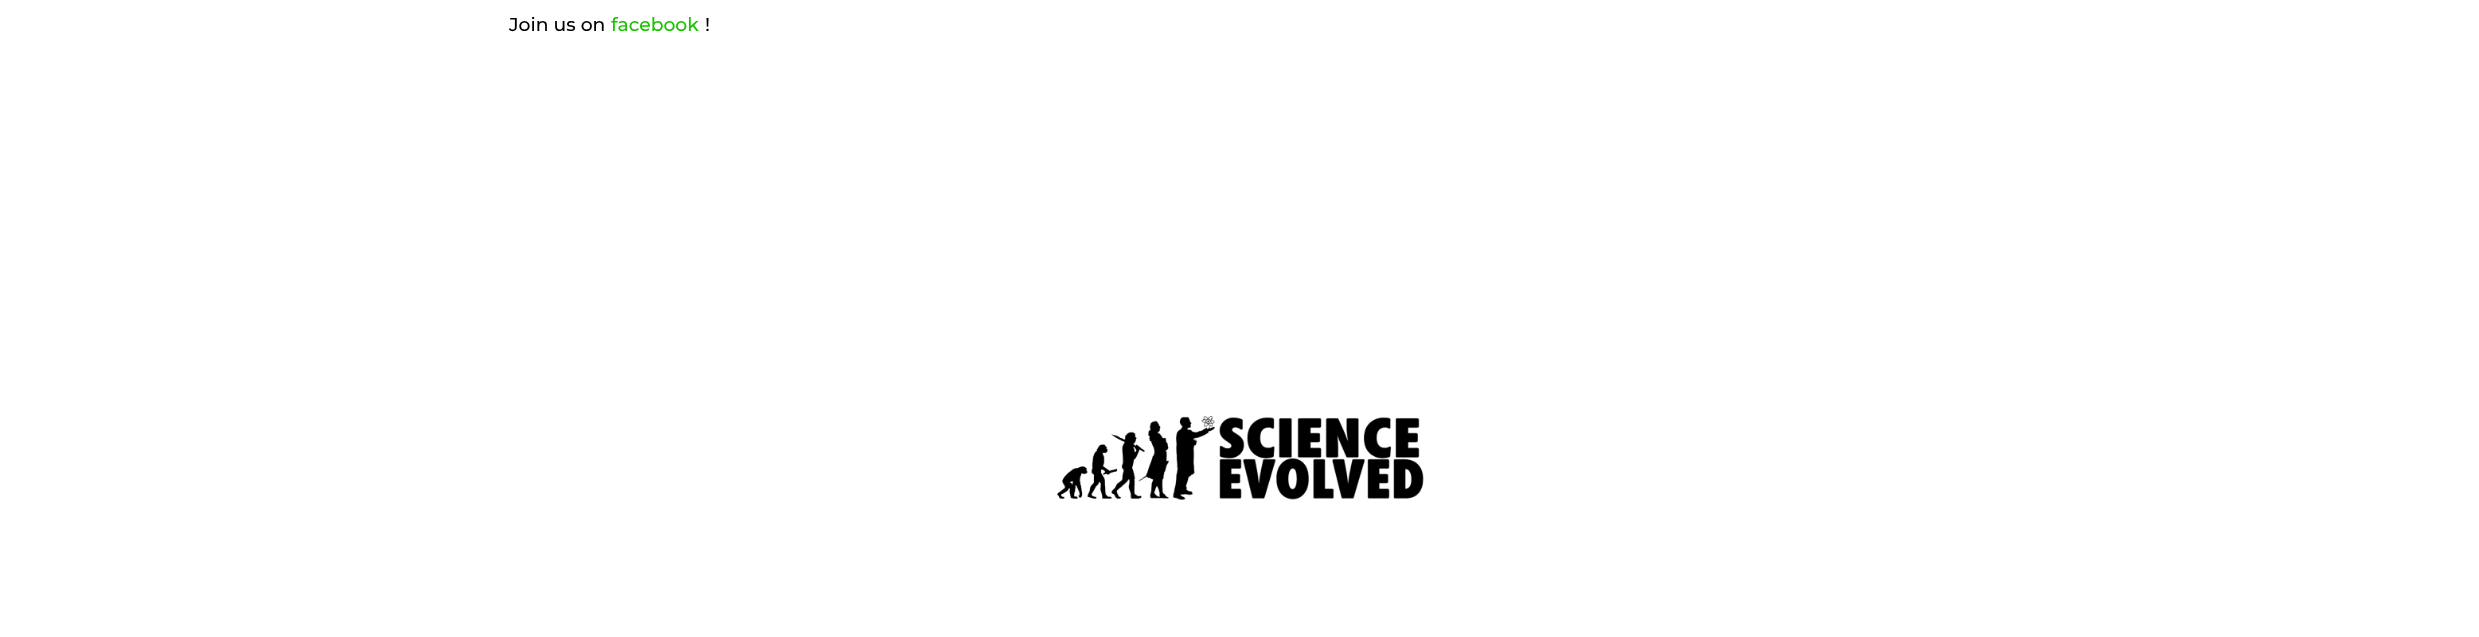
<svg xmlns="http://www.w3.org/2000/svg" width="2479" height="637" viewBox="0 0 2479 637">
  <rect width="100%" height="100%" fill="#fff"/>
  <image x="1057" y="415" width="367" height="85" href="img/1.png"/>
  <text x="509" y="31" font-family="Montserrat" font-size="18.75" font-weight="500" fill="#000">Join us on</text>
  <text x="611" y="31" font-family="Montserrat" font-size="18.75" font-weight="500" fill="#1ac200">facebook</text>
  <text x="705" y="31" font-family="Montserrat" font-size="18.75" font-weight="500" fill="#000">!</text>
</svg>
